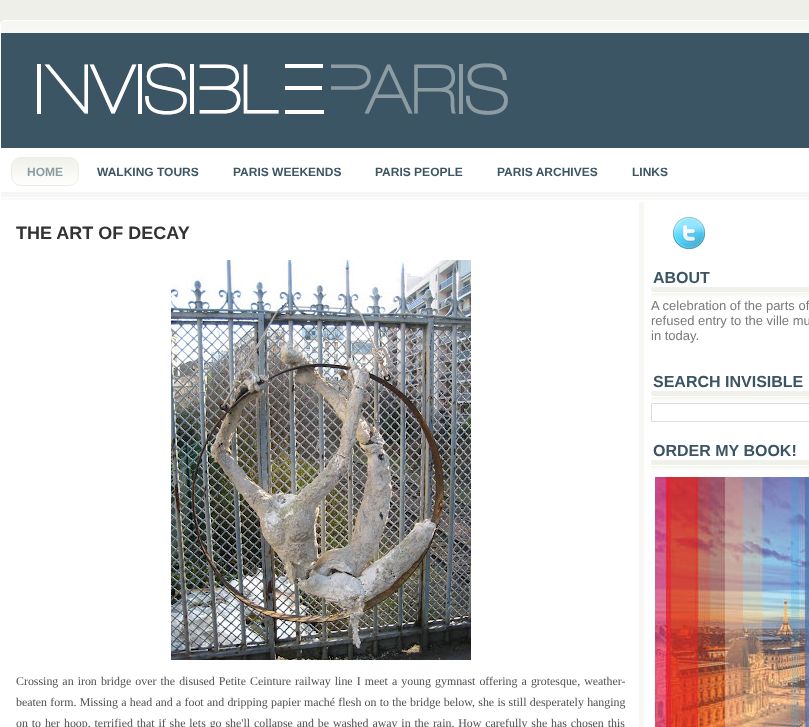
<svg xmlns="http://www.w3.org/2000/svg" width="809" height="727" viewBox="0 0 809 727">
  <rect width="100%" height="100%" fill="#efefe9"/>
  <image x="0" y="21" width="809" height="181" href="img/1.png"/>
  <rect x="0.5" y="20.5" width="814" height="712" rx="4.5" fill="none" stroke="#fff"/>
  <image x="1" y="33" width="808" height="115" href="img/2.png"/>
  <image x="1" y="192" width="808" height="8" href="img/3.png"/>
  <image x="11" y="158" width="68" height="28" href="img/4.png"/>
  <rect x="11.5" y="157.5" width="67" height="28" rx="9.5" fill="none" stroke="#eceee6"/>
  <path d="M1 202h808v525H1z" fill="#fff"/>
  <path d="M639 202h5v525H639z" fill="#f7f8f4"/>
  <image x="171" y="260" width="300" height="400" href="img/5.png"/>
  <image x="673" y="217" width="32" height="32" href="img/6.png"/>
  <image x="651" y="287" width="158" height="10" href="img/7.png"/>
  <image x="651" y="391" width="158" height="10" href="img/7.png"/>
  <path d="M651.5 403.5h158v18H651.5z" fill="none" stroke="#ddd"/>
  <image x="651" y="460" width="158" height="10" href="img/7.png"/>
  <image x="651" y="471" width="158" height="256" href="img/8.png"/>
  <text x="27" y="176" font-family="Liberation Sans" font-size="12" font-weight="bold" fill="#8b9da2">HOME</text>
  <g font-family="Liberation Sans" font-size="12" font-weight="bold" fill="#3c5564">
    <text x="97" y="176">WALKING TOURS</text>
    <text x="233" y="176">PARIS WEEKENDS</text>
    <text x="375" y="176">PARIS PEOPLE</text>
    <text x="497" y="176">PARIS ARCHIVES</text>
    <text x="632" y="176">LINKS</text>
  </g>
  <text x="16" y="239" font-family="Liberation Sans" font-size="18" font-weight="bold" fill="#333">THE ART OF DECAY</text>
  <g font-family="Liberation Serif" font-size="11.9" fill="#504d4d">
    <text x="16" y="685" word-spacing="1.1">Crossing an iron bridge over the disused Petite Ceinture railway line I meet a young gymnast offering a grotesque, weather-</text>
    <text x="16" y="706" word-spacing="0.3">beaten form. Missing a head and a foot and dripping papier maché flesh on to the bridge below, she is still desperately hanging</text>
    <text x="16" y="727" word-spacing="0.9">on to her hoop, terrified that if she lets go she'll collapse and be washed away in the rain. How carefully she has chosen this</text>
  </g>
  <text x="653" y="283" font-family="Liberation Sans" font-size="16" font-weight="bold" fill="#3c5564">ABOUT</text>
  <g font-family="Liberation Sans" font-size="13" fill="#777a7b">
    <text x="651" y="310">A celebration of the parts of</text>
    <text x="651" y="325">refused entry to the ville mu</text>
    <text x="651" y="340">in today.</text>
  </g>
  <g font-family="Liberation Sans" font-size="16" font-weight="bold" fill="#3c5564">
    <text x="653" y="387">SEARCH INVISIBLE</text>
    <text x="653" y="456">ORDER MY BOOK!</text>
  </g>
</svg>
